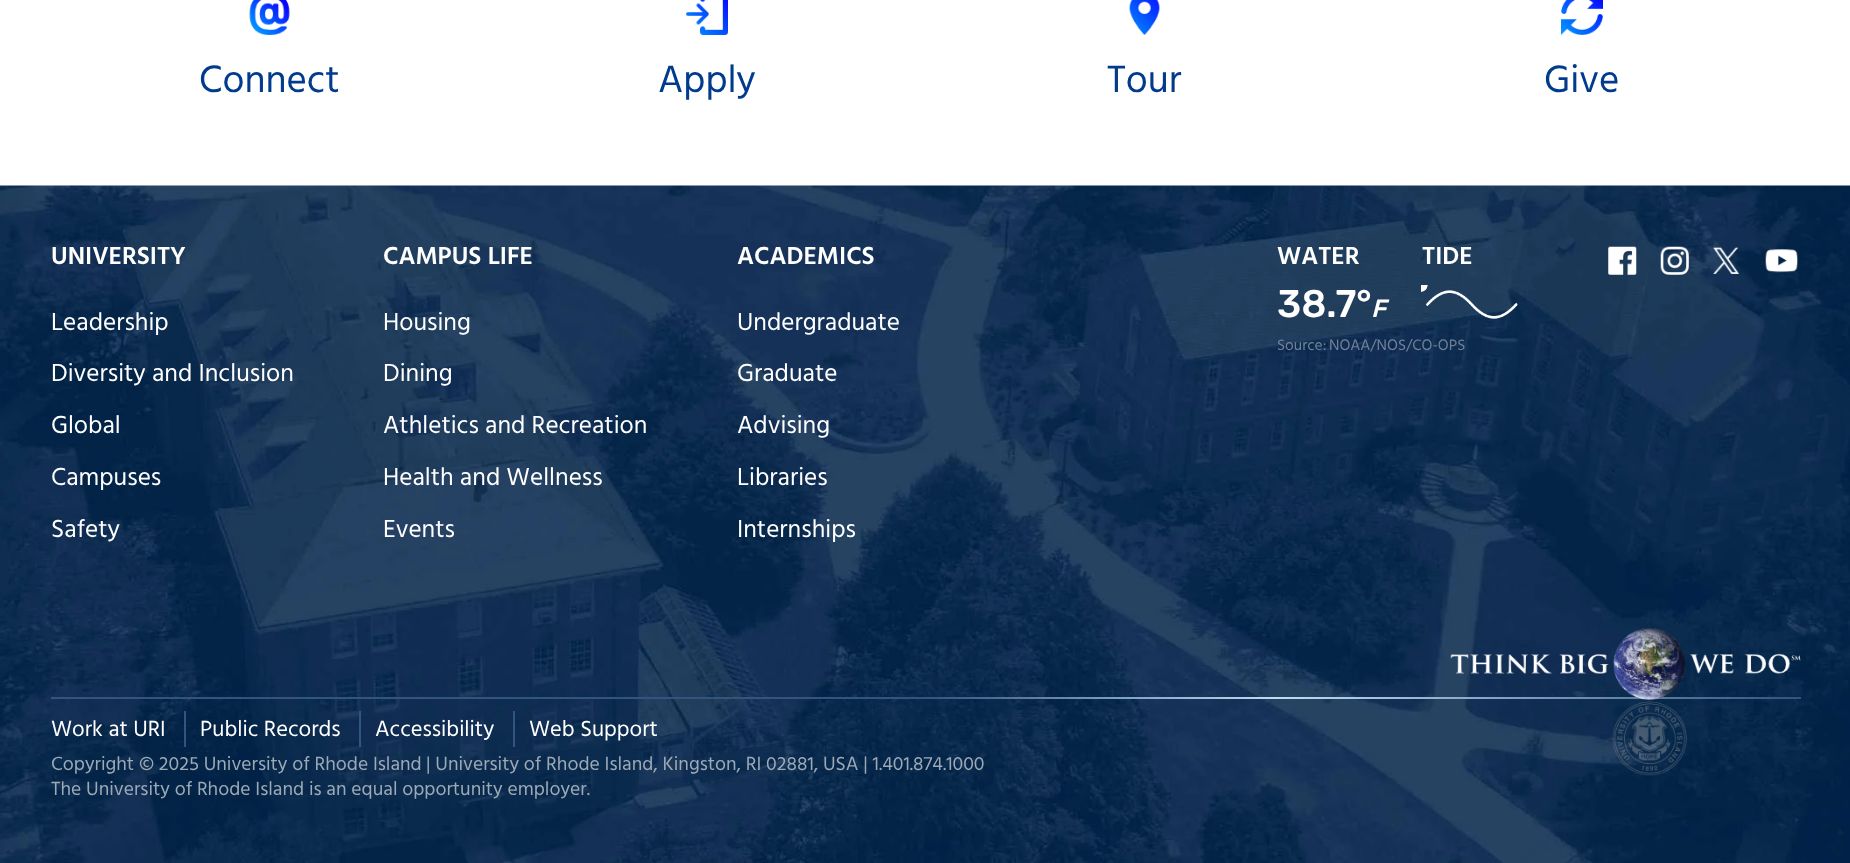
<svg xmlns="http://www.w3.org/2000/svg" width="1850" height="863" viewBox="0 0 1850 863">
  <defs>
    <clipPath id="clip1"><path d="M1421 285h103v39H1421z"/></clipPath>
    <linearGradient id="g1" gradientUnits="userSpaceOnUse" x1="51" y1="697" x2="1801" y2="697"><stop offset="0.5" stop-color="#30557e"/><stop offset="0.7" stop-color="#c0ddf2"/><stop offset="1" stop-color="#30557e"/></linearGradient>
  </defs>
  <rect width="100%" height="100%" fill="#fff"/>
  <image x="249" y="0" width="41" height="35" href="img/1.png"/>
  <image x="686" y="0" width="42" height="35" href="img/2.png"/>
  <image x="1129" y="0" width="31" height="35" href="img/3.png"/>
  <image x="1561" y="0" width="42" height="35" href="img/4.png"/>
  <image x="0" y="185" width="1850" height="678" href="img/5.png"/>
  <image x="1421" y="285" width="97" height="34" href="img/6.png"/>
  <g clip-path="url(#clip1)">
    <circle cx="1421" cy="285" r="6.5" fill="#fff"/>
  </g>
  <image x="1608" y="246" width="29" height="29" href="img/7.png"/>
  <image x="1660" y="246" width="29" height="29" href="img/8.png"/>
  <image x="1713" y="247" width="27" height="27" href="img/9.png"/>
  <image x="1765" y="249" width="33" height="24" href="img/10.png"/>
  <path d="M51 697h1750v2H51z" fill="url(#g1)"/>
  <image x="1450" y="628" width="351" height="148" href="img/11.png"/>
  <path d="M184 711h2v36H184z" fill="#30557e"/>
  <path d="M359 711h2v36H359z" fill="#30557e"/>
  <path d="M513 711h2v36H513z" fill="#30557e"/>
  <g font-family="Hind" font-size="39" fill="#003b8d">
    <text x="199" y="92">Connect</text>
    <text x="658" y="92">Apply</text>
    <text x="1107" y="92">Tour</text>
    <text x="1544" y="92">Give</text>
  </g>
  <text x="51" y="264" font-family="Hind" font-size="25.25" font-weight="600" fill="#fff">UNIVERSITY</text>
  <g font-family="Hind" font-size="25.25" fill="#fff">
    <text x="51" y="330">Leadership</text>
    <text x="51" y="381">Diversity and Inclusion</text>
    <text x="51" y="433">Global</text>
    <text x="51" y="485">Campuses</text>
    <text x="51" y="537">Safety</text>
  </g>
  <text x="383" y="264" font-family="Hind" font-size="25.25" font-weight="600" fill="#fff">CAMPUS LIFE</text>
  <g font-family="Hind" font-size="25.25" fill="#fff">
    <text x="383" y="330">Housing</text>
    <text x="383" y="381">Dining</text>
    <text x="383" y="433">Athletics and Recreation</text>
    <text x="383" y="485">Health and Wellness</text>
    <text x="383" y="537">Events</text>
  </g>
  <text x="737" y="264" font-family="Hind" font-size="25.25" font-weight="600" fill="#fff">ACADEMICS</text>
  <g font-family="Hind" font-size="25.25" fill="#fff">
    <text x="737" y="330">Undergraduate</text>
    <text x="737" y="381">Graduate</text>
    <text x="737" y="433">Advising</text>
    <text x="737" y="485">Libraries</text>
    <text x="737" y="537">Internships</text>
  </g>
  <text x="1277" y="264" font-family="Hind" font-size="25.25" font-weight="600" fill="#fff">WATER</text>
  <text x="1277" y="317" font-family="Rubik" font-size="38.5" font-weight="300" fill="#fff">38.7°</text>
  <text x="1371" y="317" font-family="Rubik" font-size="25" font-weight="300" font-style="italic" fill="#fff">F</text>
  <text x="1422" y="264" font-family="Hind" font-size="25.25" font-weight="600" fill="#fff">TIDE</text>
  <g font-family="Hind" font-size="15.5" fill="#718298">
    <text x="1277" y="350">Source:</text>
    <text x="1329" y="350">NOAA/NOS/CO-OPS</text>
  </g>
  <g font-family="Hind" font-size="22.5" fill="#fff">
    <text x="51" y="736">Work at URI</text>
    <text x="200" y="736">Public Records</text>
    <text x="375" y="736">Accessibility</text>
    <text x="529" y="736">Web Support</text>
  </g>
  <g font-family="Hind" font-size="19.6" fill="#9ca9b7">
    <text x="51" y="770">Copyright © 2025 University of Rhode Island</text>
    <text x="426" y="770">| University of Rhode Island, Kingston, RI 02881, USA | 1.401.874.1000</text>
    <text x="51" y="795">The University of Rhode Island is an equal opportunity employer.</text>
  </g>
</svg>
